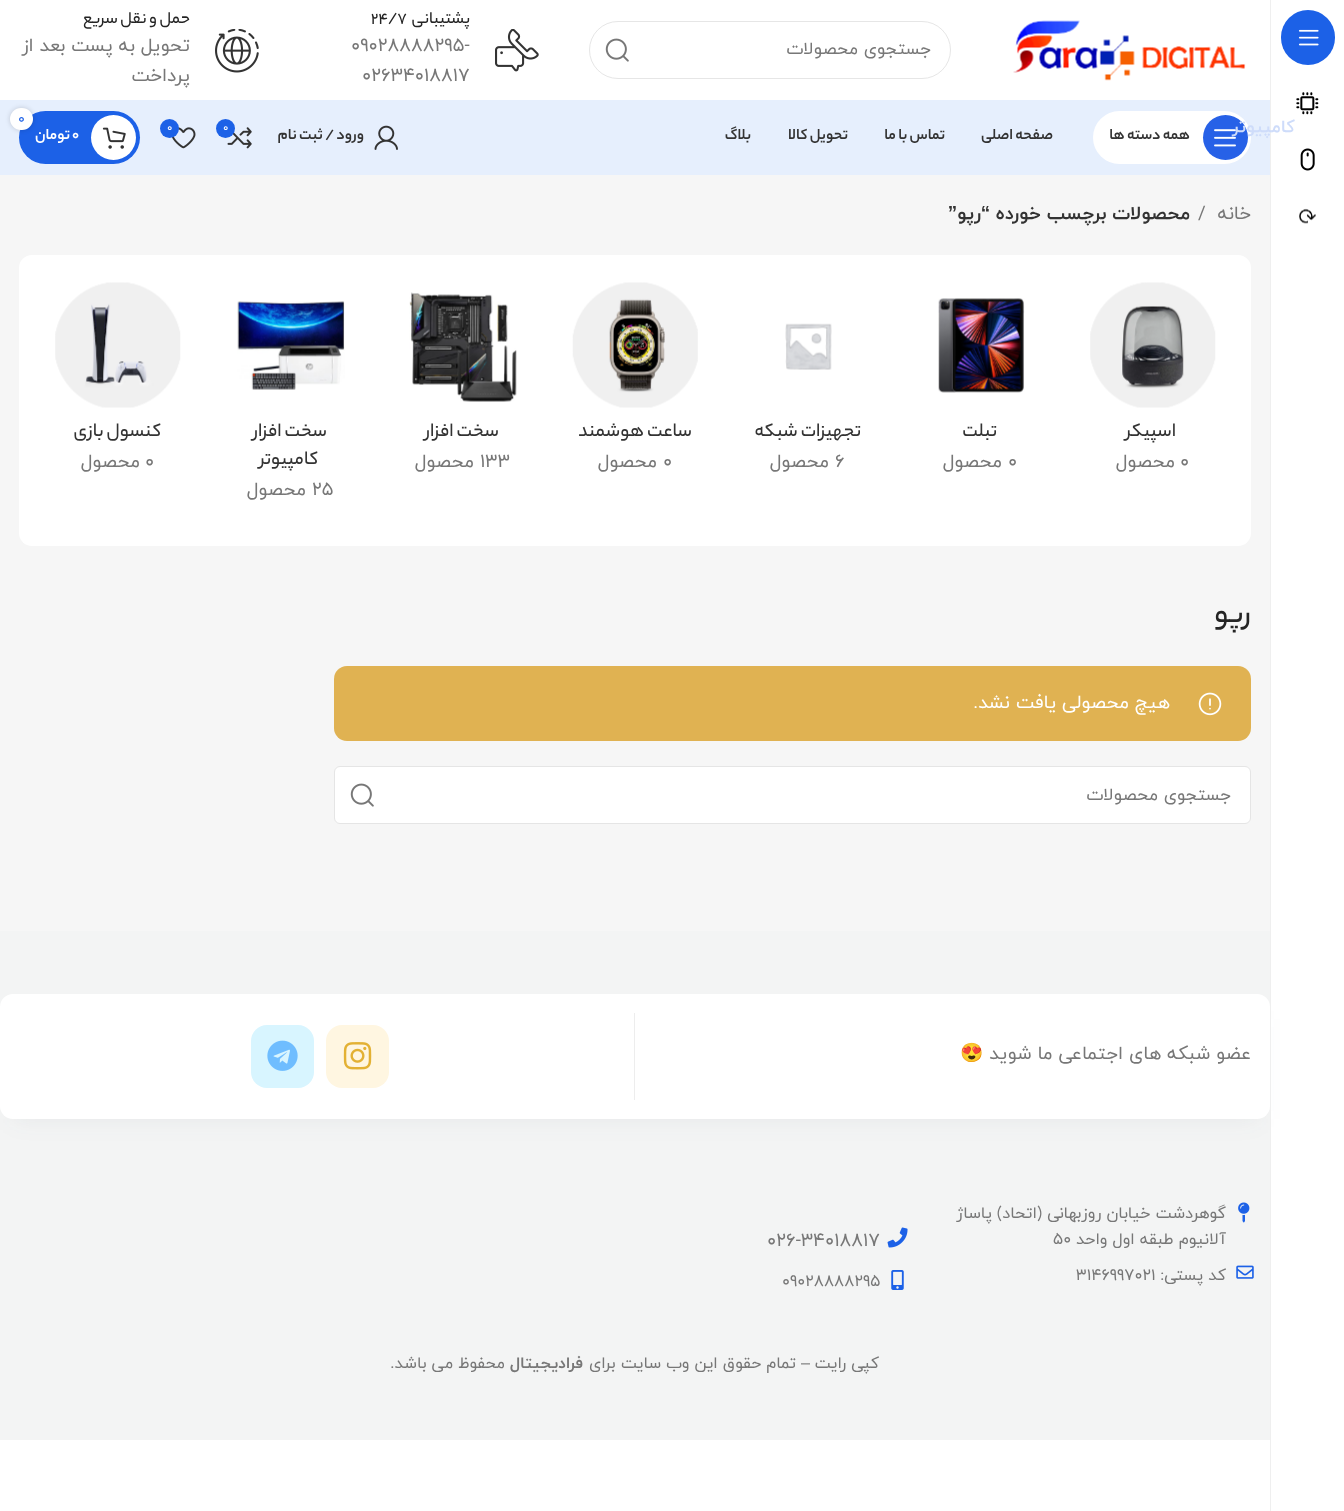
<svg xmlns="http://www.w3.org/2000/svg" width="1344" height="1511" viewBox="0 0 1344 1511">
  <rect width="100%" height="100%" fill="#fff"/>
  <path d="M0 931h1270v509H0z" fill="#f3f4f4"/>
  <path d="M13 1019h1245v100H13z" fill="#38455012" filter="blur(12.5px)"/>
  <path d="M1270 0h1v1511H1270z" fill="#efefef"/>
  <rect x="1281" y="10" width="54" height="55" rx="27" fill="#1c61e7"/>
  <image x="1298" y="29" width="21" height="17" href="img/1.png"/>
  <image x="1296" y="92" width="23" height="23" href="img/2.png"/>
  <image x="1300" y="148" width="15" height="23" href="img/3.png"/>
  <image x="1299" y="208" width="17" height="16" href="img/4.png"/>
  <image x="1013" y="20" width="233" height="61" href="img/5.png"/>
  <rect x="589.5" y="21.5" width="361" height="57" rx="28.5" fill="none" stroke="#e6e6e6"/>
  <image x="605" y="38" width="24" height="24" href="img/6.png"/>
  <image x="495" y="29" width="44" height="43" href="img/7.png"/>
  <image x="215" y="29" width="44" height="44" href="img/8.png"/>
  <path d="M0 100h1270v75H0z" fill="#e6effd"/>
  <rect x="1093" y="111" width="158" height="53" rx="26.5" fill="#fff"/>
  <circle cx="1225.5" cy="137.5" r="22.5" fill="#2761e7"/>
  <image x="1214" y="129" width="22" height="18" href="img/9.png"/>
  <image x="374" y="125" width="24" height="25" href="img/10.png"/>
  <image x="227" y="127" width="25" height="22" href="img/11.png"/>
  <circle cx="225.5" cy="128.5" r="9.5" fill="#1c61e7"/>
  <image x="171" y="127" width="25" height="22" href="img/12.png"/>
  <circle cx="169.5" cy="128.5" r="9.5" fill="#1c61e7"/>
  <rect x="19" y="111" width="121" height="53" rx="26.5" fill="#1c61e7"/>
  <circle cx="113.5" cy="137.5" r="22.5" fill="#fff"/>
  <rect x="10" y="108" width="23" height="22" rx="11" fill="#0000002b" filter="blur(2.5px)"/>
  <rect x="10" y="108" width="23" height="22" rx="11" fill="#fff"/>
  <image x="102" y="127" width="24" height="22" href="img/13.png"/>
  <path d="M0 175h1270v756H0z" fill="#f6f6f6"/>
  <rect x="19" y="255" width="1232" height="291" rx="13" fill="#fff"/>
  <image x="1090" y="282" width="126" height="126" href="img/14.png"/>
  <image x="938" y="298" width="87" height="95" href="img/15.png"/>
  <image x="785" y="323" width="47" height="47" href="img/16.png"/>
  <image x="572" y="282" width="126" height="126" href="img/17.png"/>
  <image x="409" y="292" width="108" height="110" href="img/18.png"/>
  <image x="237" y="301" width="108" height="89" href="img/19.png"/>
  <image x="55" y="282" width="126" height="126" href="img/20.png"/>
  <rect x="334" y="666" width="917" height="75" rx="13" fill="#e0b252"/>
  <image x="1198" y="692" width="24" height="24" href="img/21.png"/>
  <rect x="334.5" y="766.5" width="916" height="57" rx="5.5" fill="#fff" stroke="#e5e5e5"/>
  <image x="350" y="783" width="24" height="24" href="img/6.png"/>
  <rect y="994" width="1270" height="125" rx="13" fill="#fff"/>
  <path d="M634 1013h1v87H634z" fill="#ededed"/>
  <rect x="326" y="1025" width="63" height="63" rx="16" fill="#fff6e1"/>
  <image x="343" y="1042" width="29" height="28" href="img/22.png"/>
  <rect x="251" y="1025" width="63" height="63" rx="16" fill="#d8f5ff"/>
  <image x="267" y="1040" width="31" height="31" href="img/23.png"/>
  <image x="1238" y="1202" width="12" height="21" href="img/24.png"/>
  <image x="1236" y="1265" width="18" height="14" href="img/25.png"/>
  <image x="887" y="1227" width="21" height="21" href="img/26.png"/>
  <image x="891" y="1270" width="13" height="20" href="img/27.png"/>
  <text x="1295" y="132" font-family="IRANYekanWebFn" font-size="17.5" font-weight="bold" direction="rtl" fill="#cedcfa">کامپیوتر</text>
  <text x="931" y="54" font-family="IRANYekanWebFn" font-size="17.5" direction="rtl" fill="#777">جستجوی محصولات</text>
  <text x="470" y="23" font-family="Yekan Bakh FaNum" font-size="17.5" font-weight="500" direction="rtl" fill="#242424">پشتیبانی</text>
  <text x="371" y="23" font-family="Yekan Bakh FaNum" font-size="17.5" font-weight="500" fill="#242424">24/7</text>
  <g font-family="IRANYekanWebFn" font-size="18.75" fill="#777">
    <text x="351" y="51">09028888295-</text>
    <text x="362" y="81">02634018817</text>
  </g>
  <text x="190" y="23" font-family="Yekan Bakh FaNum" font-size="17.5" font-weight="500" direction="rtl" fill="#242424">حمل و نقل سریع</text>
  <g font-family="IRANYekanWebFn" font-size="18.75" direction="rtl" fill="#777">
    <text x="190" y="51">تحویل به پست بعد از</text>
    <text x="190" y="81">پرداخت</text>
  </g>
  <g font-family="Yekan Bakh FaNum" font-size="16.25" font-weight="bold" direction="rtl" fill="#333">
    <text x="1190" y="139">همه دسته ها</text>
    <text x="1053" y="139">صفحه اصلی</text>
    <text x="945" y="139">تماس با ما</text>
    <text x="848" y="139">تحویل کالا</text>
    <text x="751" y="139">بلاگ</text>
    <text x="364" y="139">ورود / ثبت نام</text>
  </g>
  <g font-family="IRANYekanWebFn" font-size="11" fill="#fff">
    <text x="223" y="131">0</text>
    <text x="167" y="131">0</text>
  </g>
  <text x="18" y="123" font-family="IRANYekanWebFn" font-size="14" fill="#1c61e7">0</text>
  <text x="72" y="139" font-family="Yekan Bakh FaNum" font-size="16.25" font-weight="bold" fill="#fff">0</text>
  <text x="70" y="139" font-family="Yekan Bakh FaNum" font-size="16.25" font-weight="bold" direction="rtl" fill="#fff">تومان</text>
  <text x="1251" y="219" font-family="IRANYekanWebFn" font-size="18.75" direction="rtl" fill="#777">خانه</text>
  <text x="1198" y="219" font-family="IRANYekanWebFn" font-size="18.75" fill="#777">/</text>
  <text x="1190" y="219" font-family="IRANYekanWebFn" font-size="18.75" font-weight="bold" direction="rtl" fill="#333">محصولات برچسب خورده</text>
  <text x="990" y="219" font-family="Liberation Sans" font-size="18.75" font-weight="bold" direction="rtl" fill="#333">“</text>
  <text x="981" y="219" font-family="IRANYekanWebFn" font-size="18.75" font-weight="bold" direction="rtl" fill="#333">رپو</text>
  <text x="957" y="219" font-family="Liberation Sans" font-size="18.75" font-weight="bold" direction="rtl" fill="#333">”</text>
  <text x="1176" y="436" font-family="Yekan Bakh FaNum" font-size="20" font-weight="500" direction="rtl" fill="#333">اسپیکر</text>
  <text x="1180" y="467" font-family="IRANYekanWebFn" font-size="18.75" fill="#777">0</text>
  <text x="1175" y="467" font-family="IRANYekanWebFn" font-size="18.75" direction="rtl" fill="#777">محصول</text>
  <text x="997" y="436" font-family="Yekan Bakh FaNum" font-size="20" font-weight="500" direction="rtl" fill="#333">تبلت</text>
  <text x="1008" y="467" font-family="IRANYekanWebFn" font-size="18.75" fill="#777">0</text>
  <text x="1002" y="467" font-family="IRANYekanWebFn" font-size="18.75" direction="rtl" fill="#777">محصول</text>
  <text x="861" y="436" font-family="Yekan Bakh FaNum" font-size="20" font-weight="500" direction="rtl" fill="#333">تجهیزات شبکه</text>
  <text x="835" y="467" font-family="IRANYekanWebFn" font-size="18.75" fill="#777">6</text>
  <text x="829" y="467" font-family="IRANYekanWebFn" font-size="18.75" direction="rtl" fill="#777">محصول</text>
  <text x="692" y="436" font-family="Yekan Bakh FaNum" font-size="20" font-weight="500" direction="rtl" fill="#333">ساعت هوشمند</text>
  <text x="663" y="467" font-family="IRANYekanWebFn" font-size="18.75" fill="#777">0</text>
  <text x="657" y="467" font-family="IRANYekanWebFn" font-size="18.75" direction="rtl" fill="#777">محصول</text>
  <text x="499" y="436" font-family="Yekan Bakh FaNum" font-size="20" font-weight="500" direction="rtl" fill="#333">سخت افزار</text>
  <text x="480" y="467" font-family="IRANYekanWebFn" font-size="18.75" fill="#777">133</text>
  <text x="474" y="467" font-family="IRANYekanWebFn" font-size="18.75" direction="rtl" fill="#777">محصول</text>
  <g font-family="Yekan Bakh FaNum" font-size="20" font-weight="500" direction="rtl" fill="#333">
    <text x="327" y="436">سخت افزار</text>
    <text x="318" y="464">کامپیوتر</text>
  </g>
  <text x="312" y="495" font-family="IRANYekanWebFn" font-size="18.75" fill="#777">25</text>
  <text x="306" y="495" font-family="IRANYekanWebFn" font-size="18.75" direction="rtl" fill="#777">محصول</text>
  <text x="161" y="436" font-family="Yekan Bakh FaNum" font-size="20" font-weight="500" direction="rtl" fill="#333">کنسول بازی</text>
  <text x="145" y="467" font-family="IRANYekanWebFn" font-size="18.75" fill="#777">0</text>
  <text x="140" y="467" font-family="IRANYekanWebFn" font-size="18.75" direction="rtl" fill="#777">محصول</text>
  <text x="1251" y="622" font-family="Yekan Bakh FaNum" font-size="32" font-weight="500" direction="rtl" fill="#242424">رپو</text>
  <text x="1170" y="708" font-family="IRANYekanWebFn" font-size="18.75" direction="rtl" fill="#fff">هیچ محصولی یافت نشد.</text>
  <text x="1231" y="800" font-family="IRANYekanWebFn" font-size="17.5" direction="rtl" fill="#777">جستجوی محصولات</text>
  <text x="1251" y="1059" font-family="IRANYekanWebFn" font-size="18.75" direction="rtl" fill="#777">عضو شبکه های اجتماعی ما شوید</text>
  <text x="984" y="1059" font-family="Noto Color Emoji" font-size="18.75" direction="rtl" fill="#777">😍</text>
  <g font-family="IRANYekanWebFn" font-size="16.25" direction="rtl" fill="#777">
    <text x="1226" y="1218">گوهردشت خیابان روزبهانی (اتحاد) پاساژ</text>
    <text x="1226" y="1244">آلانیوم طبقه اول واحد</text>
  </g>
  <text x="1053" y="1244" font-family="IRANYekanWebFn" font-size="16.25" fill="#777">۵۰</text>
  <text x="1226" y="1280" font-family="IRANYekanWebFn" font-size="16.25" direction="rtl" fill="#777">کد پستی:</text>
  <text x="1076" y="1280" font-family="IRANYekanWebFn" font-size="16.25" fill="#777">3146997021</text>
  <text x="767" y="1246" font-family="IRANYekanWebFn" font-size="18.75" fill="#777">026-34018817</text>
  <text x="782" y="1286" font-family="IRANYekanWebFn" font-size="16.25" fill="#777">09028888295</text>
  <text x="879" y="1368" font-family="IRANYekanWebFn" font-size="16.25" direction="rtl" fill="#777">کپی رایت</text>
  <text x="810" y="1368" font-family="Liberation Sans" font-size="16.25" direction="rtl" fill="#777">–</text>
  <text x="796" y="1368" font-family="IRANYekanWebFn" font-size="16.25" direction="rtl" fill="#777">تمام حقوق این وب سایت برای</text>
  <text x="583" y="1368" font-family="IRANYekanWebFn" font-size="16.25" font-weight="bold" direction="rtl" fill="#777">فرادیجیتال</text>
  <text x="505" y="1368" font-family="IRANYekanWebFn" font-size="16.25" direction="rtl" fill="#777">محفوظ می باشد.</text>
</svg>
